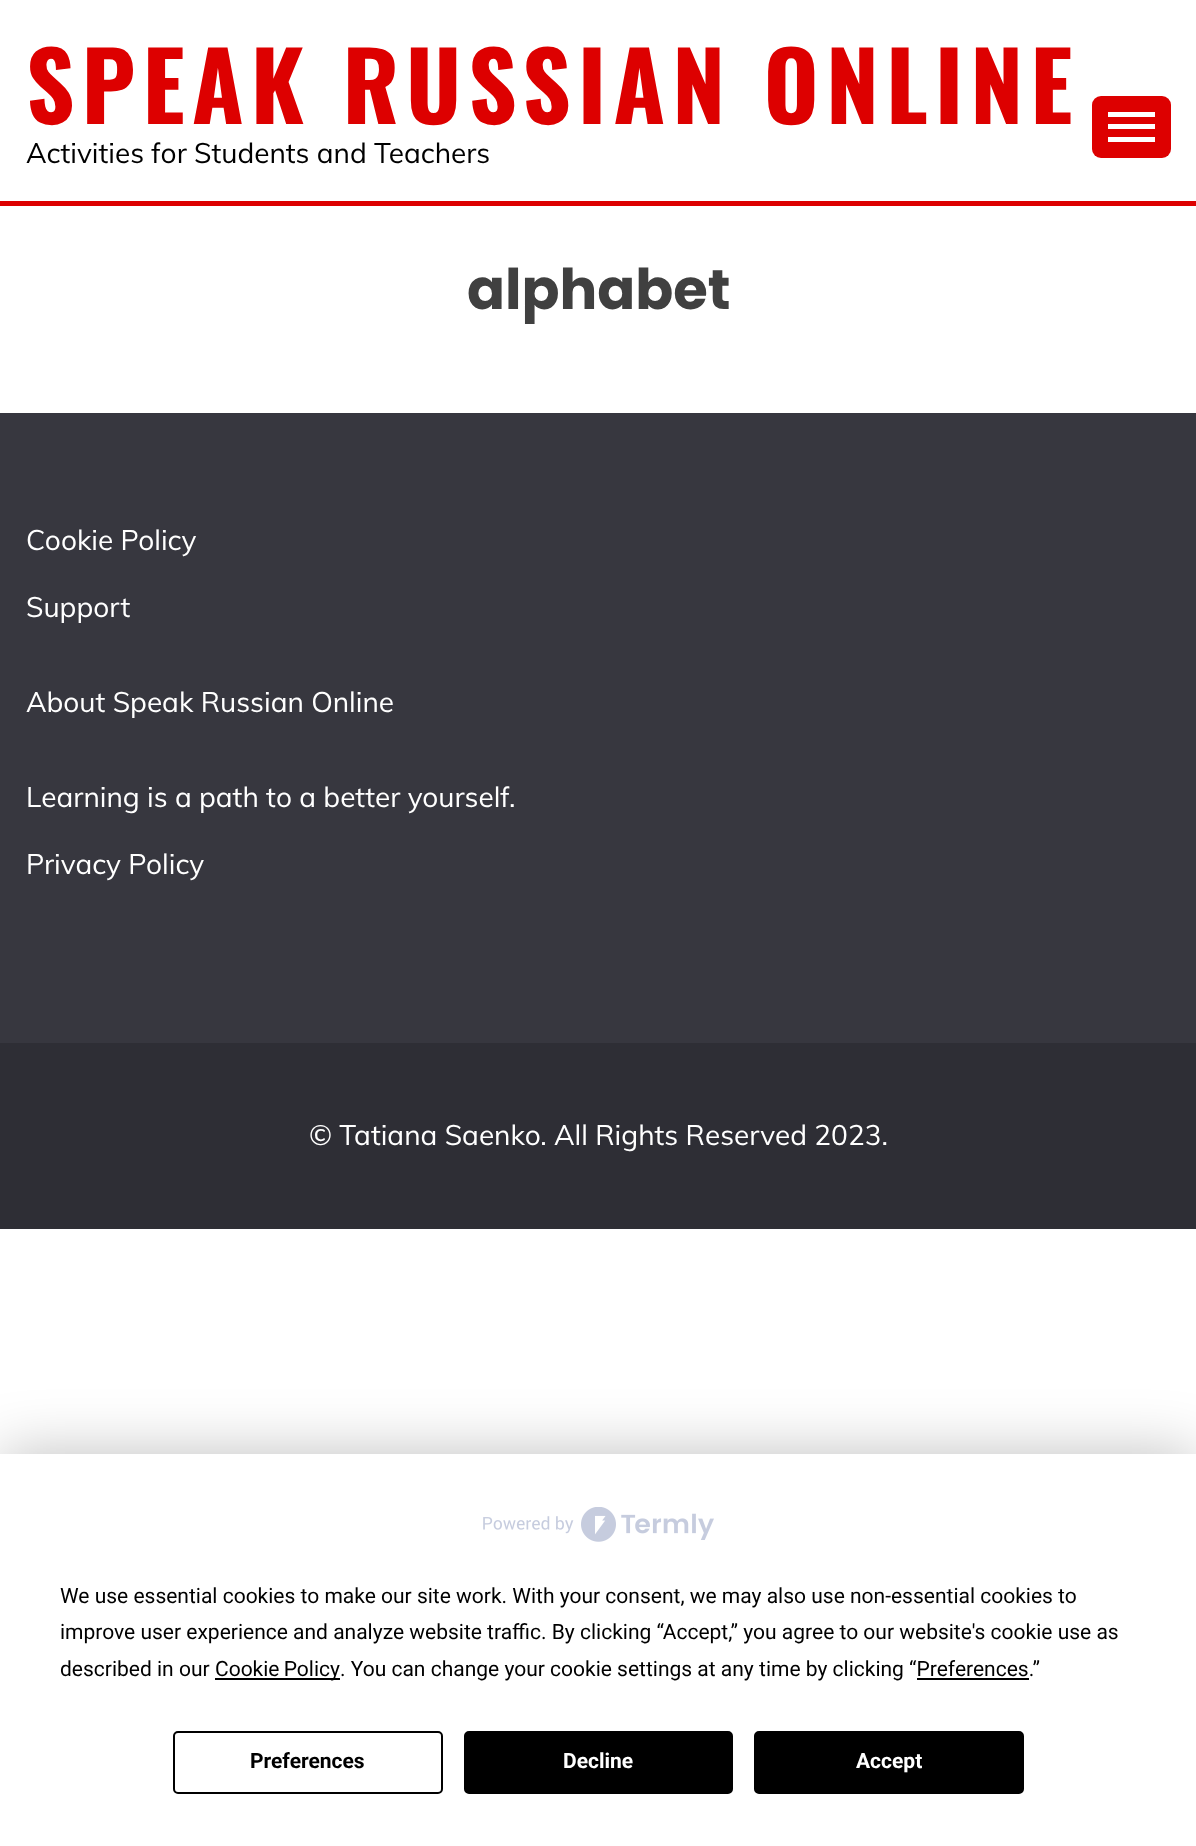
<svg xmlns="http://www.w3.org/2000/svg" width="1196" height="1846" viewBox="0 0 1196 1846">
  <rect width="100%" height="100%" fill="#fff"/>
  <rect x="1092" y="96" width="79" height="62" rx="9" fill="#d00"/>
  <path d="M1108 112h47v5H1108z" fill="#fff"/>
  <path d="M1108 124h47v5H1108z" fill="#fff"/>
  <path d="M1108 137h47v5H1108z" fill="#fff"/>
  <path d="M0 201h1196v5H0z" fill="#d00"/>
  <path d="M0 413h1196v630H0z" fill="#37373f"/>
  <path d="M0 1043h1196v186H0z" fill="#2e2e35"/>
  <path d="M0 1454h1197v392H0z" fill="#00000040" filter="blur(30.5px)"/>
  <path d="M0 1454h1196v392H0z" fill="#fff"/>
  <image x="483" y="1507" width="231" height="35" href="img/1.png"/>
  <path d="M215 1678h125v2H215z" fill="#000"/>
  <path d="M917 1678h112v2H917z" fill="#000"/>
  <rect x="174" y="1732" width="268" height="61" rx="4" fill="none" stroke="#000" stroke-width="2"/>
  <rect x="465" y="1732" width="267" height="61" rx="4" fill="#000" stroke="#000" stroke-width="2"/>
  <rect x="755" y="1732" width="268" height="61" rx="4" fill="#000" stroke="#000" stroke-width="2"/>
  <text x="26" y="124" font-family="Oswald" font-size="94.5" font-weight="bold" letter-spacing="7" fill="#d00">SPEAK RUSSIAN ONLINE</text>
  <text x="26" y="163" font-family="Muli" font-size="28" fill="#000">Activities for Students and Teachers</text>
  <text x="467" y="309" font-family="Poppins" font-size="56" font-weight="bold" fill="#404040">alphabet</text>
  <g font-family="Muli" font-size="28" fill="#fff">
    <text x="26" y="550">Cookie Policy</text>
    <text x="26" y="617">Support</text>
    <text x="26" y="712">About Speak Russian Online</text>
    <text x="26" y="807">Learning is a path to a better yourself.</text>
    <text x="26" y="874">Privacy Policy</text>
    <text x="309" y="1145">© Tatiana Saenko. All Rights Reserved 2023.</text>
  </g>
  <g font-family="Roboto" font-size="21" fill="#000">
    <text x="60" y="1603">We use essential cookies to make our site work. With your consent, we may also use non-essential cookies to</text>
    <text x="60" y="1639">improve user experience and analyze website traffic. By clicking “Accept,” you agree to our website's cookie use as</text>
    <text x="60" y="1676">described in our</text>
    <text x="215" y="1676" word-spacing="-1">Cookie Policy</text>
    <text x="340" y="1676">. You can change your cookie settings at any time by clicking “Preferences.”</text>
  </g>
  <text x="250" y="1768" font-family="Roboto" font-size="21" font-weight="bold" fill="#000">Preferences</text>
  <g font-family="Roboto" font-size="21" font-weight="bold" fill="#fff">
    <text x="563" y="1768">Decline</text>
    <text x="856" y="1768">Accept</text>
  </g>
</svg>
